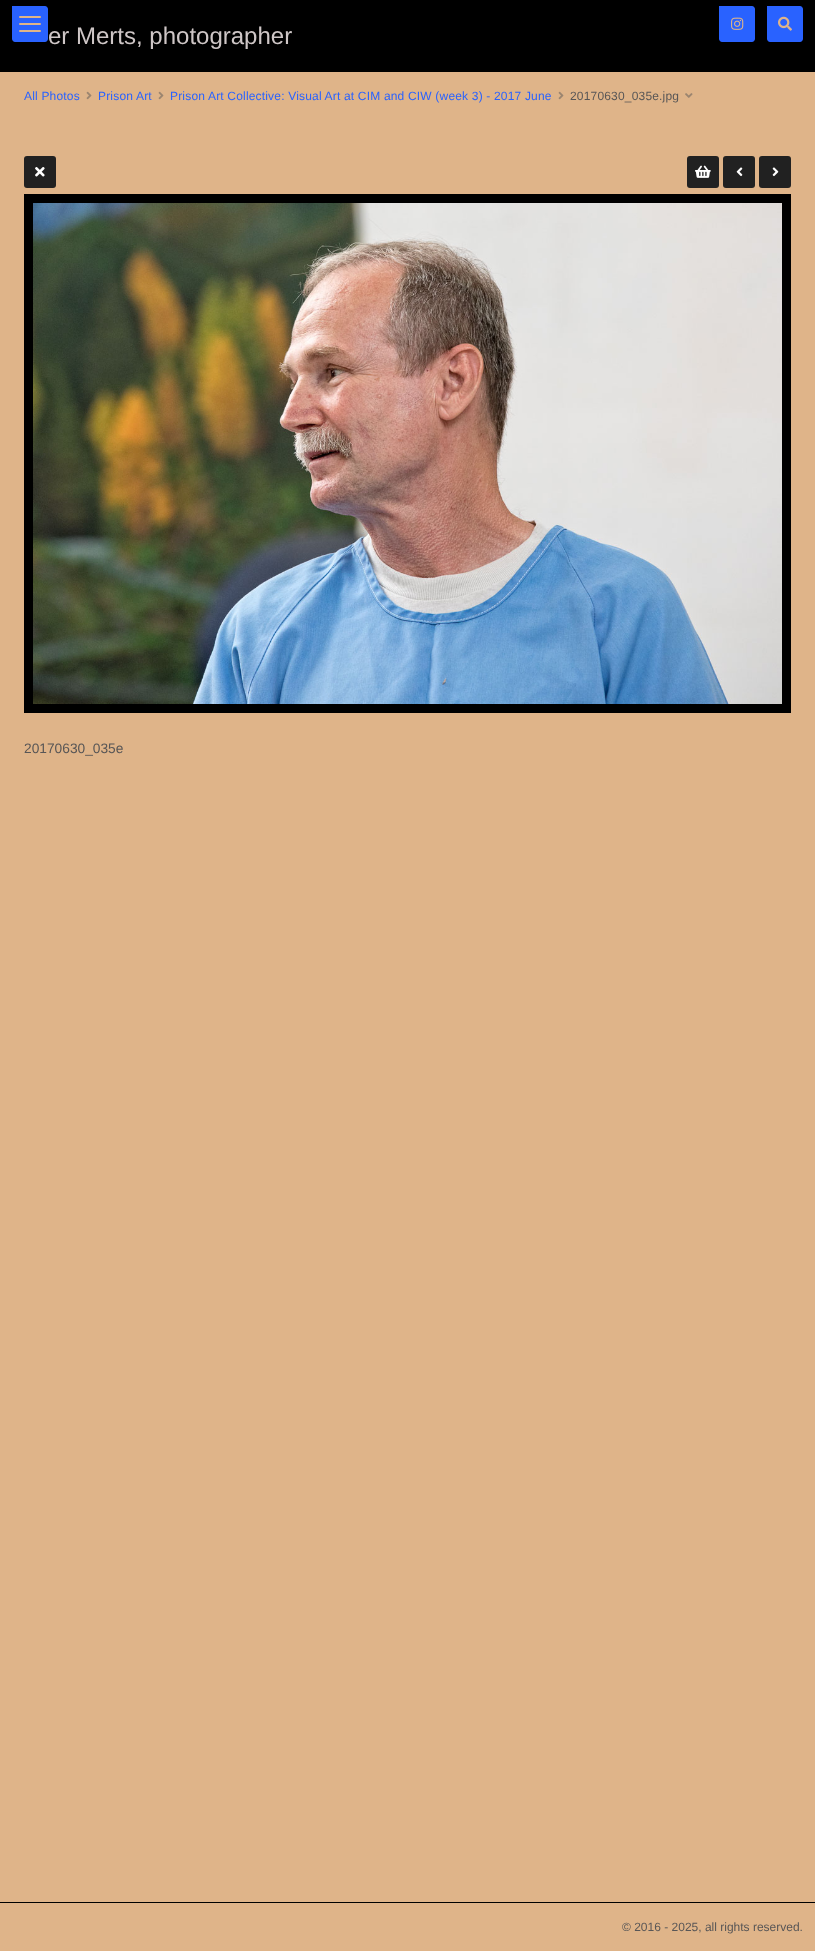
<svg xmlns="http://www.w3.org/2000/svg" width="815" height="1951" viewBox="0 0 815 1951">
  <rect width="100%" height="100%" fill="#dfb489"/>
  <path d="M0 0h815v72H0z" fill="#000"/>
  <path d="M12 6H45C46.5 6 48 7.5 48 9V39C48 40.5 46.5 42 45 42H15C13.5 42 12 40.5 12 39Z" fill="#2962ff"/>
  <rect x="19" y="16" width="22" height="2" rx="1" fill="#dfb489"/>
  <rect x="19" y="23" width="22" height="2" rx="1" fill="#dfb489"/>
  <rect x="19" y="30" width="22" height="2" rx="1" fill="#dfb489"/>
  <path d="M719 6H752C753.5 6 755 7.5 755 9V39C755 40.5 753.5 42 752 42H722C720.5 42 719 40.5 719 39Z" fill="#2962ff"/>
  <image x="731" y="17" width="13" height="13" href="img/1.png"/>
  <path d="M767 6H800C801.5 6 803 7.5 803 9V39C803 40.5 801.5 42 800 42H770C768.5 42 767 40.5 767 39Z" fill="#2962ff"/>
  <image x="778" y="16" width="14" height="15" href="img/2.png"/>
  <image x="86" y="91" width="6" height="9" href="img/3.png"/>
  <image x="158" y="91" width="6" height="9" href="img/3.png"/>
  <image x="558" y="91" width="6" height="9" href="img/3.png"/>
  <image x="685" y="93" width="8" height="5" href="img/4.png"/>
  <rect x="24" y="156" width="32" height="32" rx="3" fill="#212121"/>
  <image x="35" y="167" width="10" height="10" href="img/5.png"/>
  <rect x="687" y="156" width="32" height="32" rx="3" fill="#212121"/>
  <image x="695" y="165" width="16" height="13" href="img/6.png"/>
  <rect x="723" y="156" width="32" height="32" rx="3" fill="#212121"/>
  <image x="736" y="167" width="7" height="10" href="img/7.png"/>
  <rect x="759" y="156" width="32" height="32" rx="3" fill="#212121"/>
  <image x="772" y="167" width="7" height="10" href="img/8.png"/>
  <path d="M28.5 198.5h758v510H28.5z" fill="none" stroke="#000" stroke-width="9"/>
  <image x="33" y="203" width="749" height="501" href="img/9.png"/>
  <path d="M0 1902h815v1H0z" fill="#000"/>
  <text x="48" y="44" font-family="Liberation Sans" font-size="24" fill="#cec6c6">er Merts, photographer</text>
  <g font-family="Liberation Sans" font-size="12" letter-spacing="0.18" fill="#2962ff">
    <text x="24" y="100">All Photos</text>
    <text x="98" y="100">Prison Art</text>
    <text x="170" y="100">Prison Art Collective: Visual Art at CIM and CIW (week 3) - 2017 June</text>
  </g>
  <text x="570" y="100" font-family="Liberation Sans" font-size="12" letter-spacing="0.18" fill="#585656">20170630_035e.jpg</text>
  <text x="24" y="753" font-family="Liberation Sans" font-size="13.75" fill="#585656">20170630_035e</text>
  <text x="622" y="1931" font-family="Liberation Sans" font-size="12" fill="#585656">© 2016 - 2025, all rights reserved.</text>
</svg>
